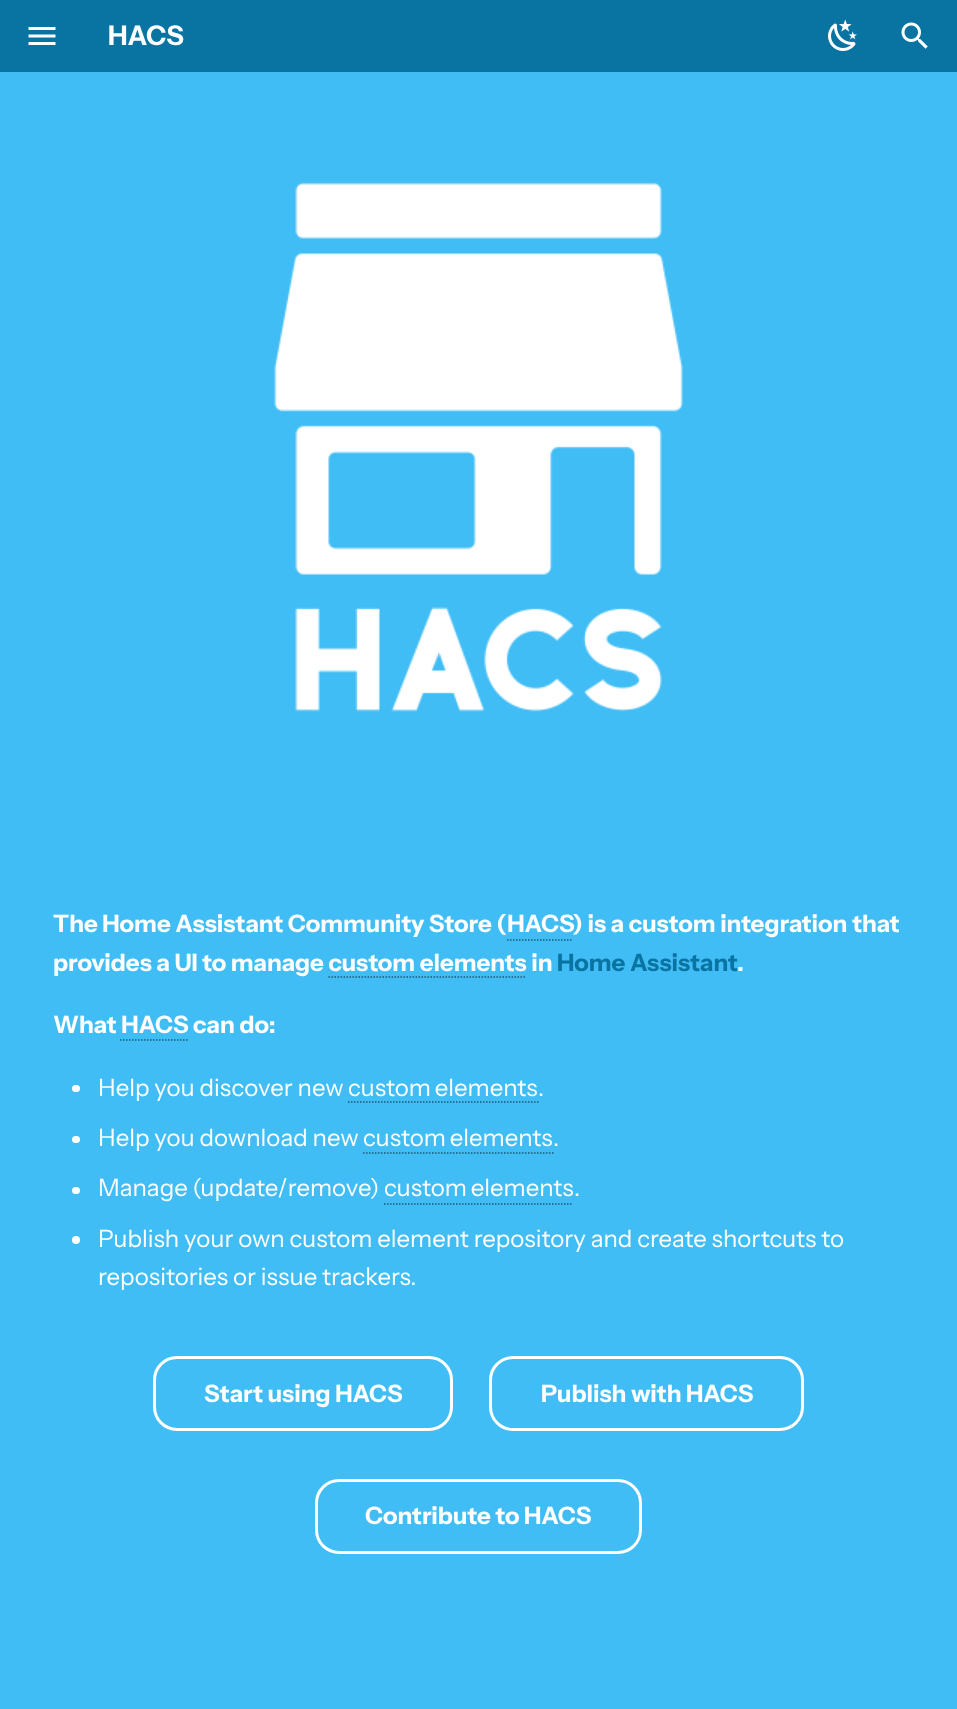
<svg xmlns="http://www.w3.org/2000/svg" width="957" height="1709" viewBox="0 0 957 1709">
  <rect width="100%" height="100%" fill="#41bdf5"/>
  <path d="M0 0h957v72H0z" fill="#0973a2"/>
  <image x="28" y="27" width="28" height="18" href="img/1.png"/>
  <image x="828" y="19" width="29" height="32" href="img/2.png"/>
  <image x="901" y="22" width="27" height="27" href="img/3.png"/>
  <image x="274" y="182" width="409" height="530" href="img/4.png"/>
  <path d="M507 940H573" fill="none" stroke="#1e5771" stroke-width="1.5" stroke-dasharray="1.5 1.5"/>
  <path d="M120 1040H187.5" fill="none" stroke="#1e5771" stroke-width="1.5" stroke-dasharray="1.5 1.5"/>
  <rect x="72" y="1085" width="8" height="7" rx="3.5" fill="#fefefe"/>
  <path d="M348 1102H538.5" fill="none" stroke="#1e5771" stroke-width="1.5" stroke-dasharray="1.5 1.5"/>
  <rect x="72" y="1136" width="8" height="7" rx="3.5" fill="#fefefe"/>
  <path d="M363 1153H553.5" fill="none" stroke="#1e5771" stroke-width="1.5" stroke-dasharray="1.5 1.5"/>
  <rect x="72" y="1187" width="8" height="7" rx="3.5" fill="#fefefe"/>
  <path d="M384 1204H573" fill="none" stroke="#1e5771" stroke-width="1.5" stroke-dasharray="1.5 1.5"/>
  <circle cx="76" cy="1240" r="4" fill="#fefefe"/>
  <rect x="154.5" y="1357.5" width="297" height="72" rx="22.5" fill="none" stroke="#fefefe" stroke-width="3"/>
  <rect x="490.5" y="1357.5" width="312" height="72" rx="22.5" fill="none" stroke="#fefefe" stroke-width="3"/>
  <rect x="316.5" y="1480.5" width="324" height="72" rx="22.5" fill="none" stroke="#fefefe" stroke-width="3"/>
  <text x="108" y="45" font-family="Instrument Sans" font-size="27" font-weight="bold" fill="#fefefe">HACS</text>
  <g font-family="Instrument Sans" font-size="24" font-weight="bold" fill="#fefefe">
    <text x="53" y="932">The Home Assistant Community Store (HACS</text>
    <text x="572" y="932">) is a custom integration that</text>
    <text x="53" y="971">provides a UI to manage custom elements in</text>
  </g>
  <text x="557" y="971" font-family="Instrument Sans" font-size="24" font-weight="bold" fill="#0973a2">Home Assistant</text>
  <text x="737" y="971" font-family="Instrument Sans" font-size="24" font-weight="bold" fill="#fefefe">.</text>
  <path d="M328.5 977H526.5" fill="none" stroke="#1e5771" stroke-width="1.5" stroke-dasharray="1.5 1.5"/>
  <text x="53" y="1033" font-family="Instrument Sans" font-size="24" font-weight="bold" fill="#fefefe">What HACS can do:</text>
  <g font-family="Instrument Sans" font-size="24" fill="#fefefe">
    <text x="98" y="1096">Help you discover new</text>
    <text x="348" y="1096" word-spacing="-1">custom elements</text>
    <text x="538" y="1096">.</text>
    <text x="98" y="1146">Help you download new</text>
    <text x="363" y="1146" word-spacing="-1">custom elements</text>
    <text x="553" y="1146">.</text>
    <text x="98" y="1196">Manage (update/remove)</text>
    <text x="384" y="1196" word-spacing="-1">custom elements</text>
    <text x="574" y="1196">.</text>
    <text x="98" y="1247">Publish your own custom element repository and create shortcuts to</text>
    <text x="98" y="1285">repositories or issue trackers.</text>
  </g>
  <g font-family="Instrument Sans" font-size="24" font-weight="bold" fill="#fefefe">
    <text x="204" y="1402">Start using HACS</text>
    <text x="541" y="1402">Publish with HACS</text>
    <text x="365" y="1524">Contribute to HACS</text>
  </g>
</svg>
